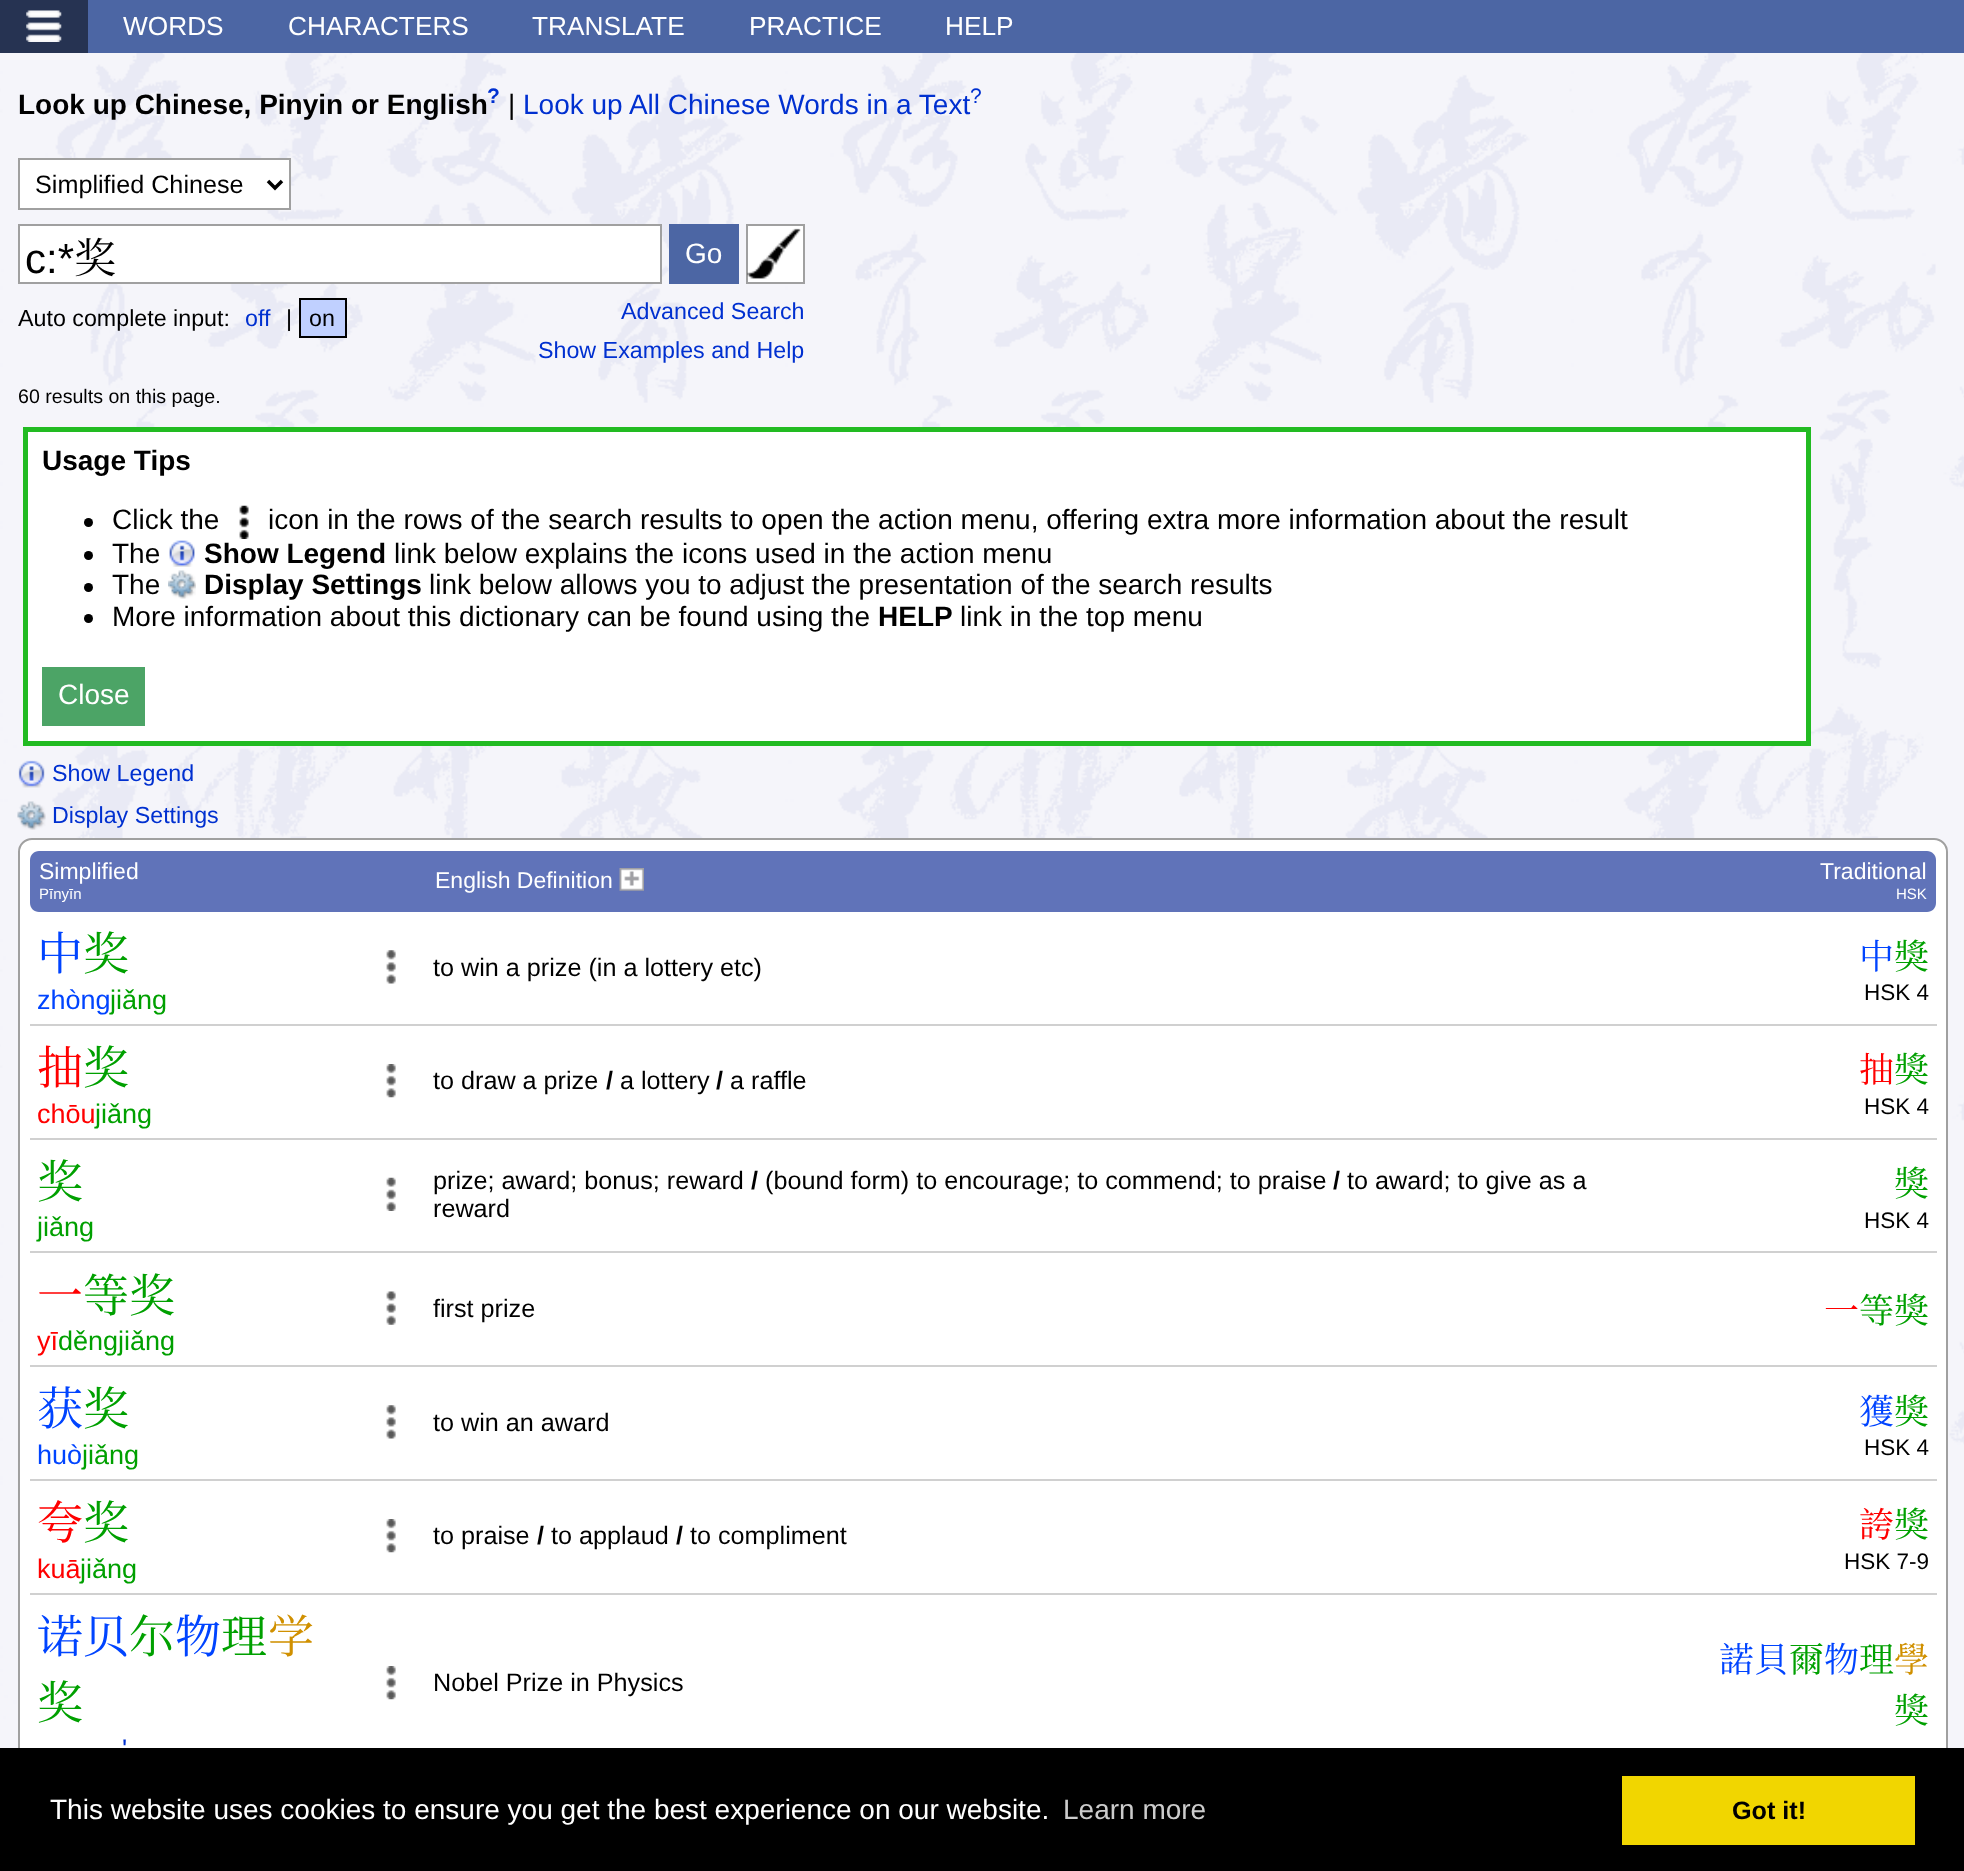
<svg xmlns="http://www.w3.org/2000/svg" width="1964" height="1871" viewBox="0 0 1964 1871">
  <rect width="100%" height="100%" fill="#fff"/>
  <image x="0" y="53" width="1964" height="1695" href="img/1.png"/>
  <path d="M88 0h1876v53H88z" fill="#4c66a4"/>
  <path d="M0 0h88v53H0z" fill="#263352"/>
  <image x="26" y="10" width="36" height="32" href="img/2.png"/>
  <path d="M19 159h271v50H19z" fill="#fff" stroke="#a0a0a0" stroke-width="2"/>
  <path d="M268 181L275 188L282 181" fill="none" stroke="#000" stroke-width="3.5"/>
  <path d="M747 225h57v58H747z" fill="#fff" stroke="#a0a0a0" stroke-width="2"/>
  <path d="M19 225h642v58H19z" fill="#fff" stroke="#a0a0a0" stroke-width="2"/>
  <path d="M669 224h70v60H669z" fill="#4c66a4"/>
  <image x="747" y="228" width="54" height="51" href="img/3.png"/>
  <path d="M300 299h46v38H300z" fill="#c0d0ff" stroke="#000" stroke-width="2"/>
  <path d="M25.5 429.5h1783v314H25.5z" fill="#fff" stroke="#2b2" stroke-width="5"/>
  <circle cx="88.5" cy="522.5" r="4.5" fill="#000"/>
  <image x="239" y="505" width="10" height="34" href="img/4.png"/>
  <circle cx="88.5" cy="555.5" r="4.5" fill="#000"/>
  <image x="169" y="540" width="26" height="27" href="img/5.png"/>
  <circle cx="88.5" cy="587.5" r="4.5" fill="#000"/>
  <image x="168" y="570" width="28" height="29" href="img/6.png"/>
  <circle cx="88.5" cy="618.5" r="4.5" fill="#000"/>
  <path d="M42 667h103v59H42z" fill="#4ca466"/>
  <image x="18" y="760" width="27" height="28" href="img/7.png"/>
  <image x="17" y="801" width="29" height="29" href="img/8.png"/>
  <rect x="19" y="839" width="1928" height="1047" rx="13" fill="#fff" stroke="#a0a0a0" stroke-width="2"/>
  <path d="M39 851H368V912H39C34 912 30 908 30 903V860C30 855 34 851 39 851Z" fill="#6073b9"/>
  <path d="M368 851h1309v61H368z" fill="#6073b9"/>
  <path d="M1677 851H1927C1932 851 1936 855 1936 860V903C1936 908 1932 912 1927 912H1677Z" fill="#6073b9"/>
  <image x="619" y="868" width="25" height="23" href="img/9.png"/>
  <image x="386" y="950" width="10" height="34" href="img/10.png"/>
  <path d="M30 1024h1907v2H30z" fill="#d0d0d0"/>
  <image x="386" y="1064" width="10" height="34" href="img/11.png"/>
  <path d="M30 1138h1907v2H30z" fill="#d0d0d0"/>
  <image x="386" y="1177" width="10" height="34" href="img/12.png"/>
  <path d="M30 1251h1907v2H30z" fill="#d0d0d0"/>
  <image x="386" y="1291" width="10" height="34" href="img/13.png"/>
  <path d="M30 1365h1907v2H30z" fill="#d0d0d0"/>
  <image x="386" y="1405" width="10" height="34" href="img/10.png"/>
  <path d="M30 1479h1907v2H30z" fill="#d0d0d0"/>
  <image x="386" y="1519" width="10" height="34" href="img/11.png"/>
  <path d="M30 1593h1907v2H30z" fill="#d0d0d0"/>
  <image x="386" y="1666" width="10" height="34" href="img/11.png"/>
  <path d="M0 1748h1964v123H0z" fill="#000"/>
  <path d="M1622 1776h293v69H1622z" fill="#f1d600"/>
  <g font-family="Liberation Sans" font-size="26.25" fill="#fff">
    <text x="123" y="35">WORDS</text>
    <text x="288" y="35">CHARACTERS</text>
    <text x="532" y="35">TRANSLATE</text>
    <text x="749" y="35">PRACTICE</text>
    <text x="945" y="35">HELP</text>
  </g>
  <text x="18" y="114" font-family="Liberation Sans" font-size="28" font-weight="bold" fill="#000">Look up Chinese, Pinyin or English</text>
  <text x="487" y="103" font-family="Liberation Sans" font-size="21" font-weight="bold" fill="#0030d0">?</text>
  <text x="508" y="114" font-family="Liberation Sans" font-size="28" fill="#000">|</text>
  <text x="523" y="114" font-family="Liberation Sans" font-size="28" fill="#0030d0">Look up All Chinese Words in a Text</text>
  <text x="970" y="103" font-family="Liberation Sans" font-size="21" fill="#0030d0">?</text>
  <text x="35" y="193" font-family="Liberation Sans" font-size="25.2" fill="#000">Simplified Chinese</text>
  <text x="25" y="273" font-family="Liberation Sans" font-size="42" fill="#000">c:*</text>
  <text x="74" y="273" font-family="Noto Serif CJK SC" font-size="42" fill="#000">奖</text>
  <text x="685" y="263" font-family="Liberation Sans" font-size="28" fill="#fff">Go</text>
  <text x="18" y="326" font-family="Liberation Sans" font-size="23.25" fill="#000">Auto complete input:</text>
  <text x="245" y="326" font-family="Liberation Sans" font-size="23.25" fill="#0030d0">off</text>
  <g font-family="Liberation Sans" font-size="23.25" fill="#000">
    <text x="286" y="326">|</text>
    <text x="309" y="326">on</text>
  </g>
  <g font-family="Liberation Sans" font-size="23.25" fill="#0030d0">
    <text x="621" y="319">Advanced Search</text>
    <text x="538" y="358">Show Examples and Help</text>
  </g>
  <text x="18" y="403" font-family="Liberation Sans" font-size="19.6" fill="#000">60 results on this page.</text>
  <text x="42" y="470" font-family="Liberation Sans" font-size="28" font-weight="bold" fill="#000">Usage Tips</text>
  <g font-family="Liberation Sans" font-size="28" fill="#000">
    <text x="112" y="529">Click the</text>
    <text x="268" y="529">icon in the rows of the search results to open the action menu, offering extra more information about the result</text>
    <text x="112" y="563">The</text>
  </g>
  <text x="204" y="563" font-family="Liberation Sans" font-size="28" font-weight="bold" fill="#000">Show Legend</text>
  <g font-family="Liberation Sans" font-size="28" fill="#000">
    <text x="394" y="563">link below explains the icons used in the action menu</text>
    <text x="112" y="594">The</text>
  </g>
  <text x="204" y="594" font-family="Liberation Sans" font-size="28" font-weight="bold" fill="#000">Display Settings</text>
  <g font-family="Liberation Sans" font-size="28" fill="#000">
    <text x="429" y="594">link below allows you to adjust the presentation of the search results</text>
    <text x="112" y="626">More information about this dictionary can be found using the</text>
  </g>
  <text x="878" y="626" font-family="Liberation Sans" font-size="28" font-weight="bold" fill="#000">HELP</text>
  <text x="960" y="626" font-family="Liberation Sans" font-size="28" fill="#000">link in the top menu</text>
  <text x="58" y="704" font-family="Liberation Sans" font-size="28" fill="#fff">Close</text>
  <g font-family="Liberation Sans" font-size="23.25" fill="#0030d0">
    <text x="52" y="781">Show Legend</text>
    <text x="52" y="823">Display Settings</text>
  </g>
  <text x="39" y="879" font-family="Liberation Sans" font-size="23" fill="#fff">Simplified</text>
  <text x="39" y="899" font-family="Liberation Sans" font-size="15" fill="#fff">Pīnyīn</text>
  <text x="1820" y="879" font-family="Liberation Sans" font-size="23" fill="#fff">Traditional</text>
  <text x="1896" y="899" font-family="Liberation Sans" font-size="15" fill="#fff">HSK</text>
  <text x="435" y="888" font-family="Liberation Sans" font-size="23" fill="#fff">English Definition</text>
  <text x="37" y="970" font-family="Noto Serif CJK SC" font-size="46" fill="#04f">中</text>
  <text x="83" y="970" font-family="Noto Serif CJK SC" font-size="46" fill="#00a000">奖</text>
  <text x="37" y="1009" font-family="Liberation Sans" font-size="27" fill="#04f">zhòng</text>
  <text x="110" y="1009" font-family="Liberation Sans" font-size="27" fill="#00a000">jiǎng</text>
  <text x="433" y="976" font-family="Liberation Sans" font-size="25.2" fill="#000">to win a prize (in a lottery etc)</text>
  <text x="1859" y="969" font-family="Noto Serif CJK SC" font-size="35" fill="#04f">中</text>
  <text x="1894" y="969" font-family="Noto Serif CJK SC" font-size="35" fill="#00a000">獎</text>
  <text x="1864" y="1000" font-family="Liberation Sans" font-size="22.5" fill="#000">HSK 4</text>
  <text x="37" y="1084" font-family="Noto Serif CJK SC" font-size="46" fill="#f00">抽</text>
  <text x="83" y="1084" font-family="Noto Serif CJK SC" font-size="46" fill="#00a000">奖</text>
  <text x="37" y="1123" font-family="Liberation Sans" font-size="27" fill="#f00">chōu</text>
  <text x="95" y="1123" font-family="Liberation Sans" font-size="27" fill="#00a000">jiǎng</text>
  <text x="433" y="1089" font-family="Liberation Sans" font-size="25.2" fill="#000">to draw a prize</text>
  <text x="606" y="1089" font-family="Liberation Sans" font-size="25.2" font-weight="bold" fill="#000">/</text>
  <text x="620" y="1089" font-family="Liberation Sans" font-size="25.2" fill="#000">a lottery</text>
  <text x="716" y="1089" font-family="Liberation Sans" font-size="25.2" font-weight="bold" fill="#000">/</text>
  <text x="730" y="1089" font-family="Liberation Sans" font-size="25.2" fill="#000">a raffle</text>
  <text x="1859" y="1082" font-family="Noto Serif CJK SC" font-size="35" fill="#f00">抽</text>
  <text x="1894" y="1082" font-family="Noto Serif CJK SC" font-size="35" fill="#00a000">獎</text>
  <text x="1864" y="1114" font-family="Liberation Sans" font-size="22.5" fill="#000">HSK 4</text>
  <text x="37" y="1198" font-family="Noto Serif CJK SC" font-size="46" fill="#00a000">奖</text>
  <text x="37" y="1236" font-family="Liberation Sans" font-size="27" fill="#00a000">jiǎng</text>
  <text x="433" y="1189" font-family="Liberation Sans" font-size="25.2" fill="#000">prize; award; bonus; reward</text>
  <text x="751" y="1189" font-family="Liberation Sans" font-size="25.2" font-weight="bold" fill="#000">/</text>
  <text x="765" y="1189" font-family="Liberation Sans" font-size="25.2" fill="#000">(bound form) to encourage; to commend; to praise</text>
  <text x="1333" y="1189" font-family="Liberation Sans" font-size="25.2" font-weight="bold" fill="#000">/</text>
  <g font-family="Liberation Sans" font-size="25.2" fill="#000">
    <text x="1347" y="1189">to award; to give as a</text>
    <text x="433" y="1217">reward</text>
  </g>
  <text x="1894" y="1196" font-family="Noto Serif CJK SC" font-size="35" fill="#00a000">獎</text>
  <text x="1864" y="1228" font-family="Liberation Sans" font-size="22.5" fill="#000">HSK 4</text>
  <text x="37" y="1312" font-family="Noto Serif CJK SC" font-size="46" fill="#f00">一</text>
  <text x="83" y="1312" font-family="Noto Serif CJK SC" font-size="46" fill="#00a000">等奖</text>
  <text x="37" y="1350" font-family="Liberation Sans" font-size="27" fill="#f00">yī</text>
  <text x="58" y="1350" font-family="Liberation Sans" font-size="27" fill="#00a000">děngjiǎng</text>
  <text x="433" y="1317" font-family="Liberation Sans" font-size="25.2" fill="#000">first prize</text>
  <text x="1824" y="1323" font-family="Noto Serif CJK SC" font-size="35" fill="#f00">一</text>
  <text x="1859" y="1323" font-family="Noto Serif CJK SC" font-size="35" fill="#00a000">等獎</text>
  <text x="37" y="1425" font-family="Noto Serif CJK SC" font-size="46" fill="#04f">获</text>
  <text x="83" y="1425" font-family="Noto Serif CJK SC" font-size="46" fill="#00a000">奖</text>
  <text x="37" y="1464" font-family="Liberation Sans" font-size="27" fill="#04f">huò</text>
  <text x="82" y="1464" font-family="Liberation Sans" font-size="27" fill="#00a000">jiǎng</text>
  <text x="433" y="1431" font-family="Liberation Sans" font-size="25.2" fill="#000">to win an award</text>
  <text x="1859" y="1424" font-family="Noto Serif CJK SC" font-size="35" fill="#04f">獲</text>
  <text x="1894" y="1424" font-family="Noto Serif CJK SC" font-size="35" fill="#00a000">獎</text>
  <text x="1864" y="1455" font-family="Liberation Sans" font-size="22.5" fill="#000">HSK 4</text>
  <text x="37" y="1539" font-family="Noto Serif CJK SC" font-size="46" fill="#f00">夸</text>
  <text x="83" y="1539" font-family="Noto Serif CJK SC" font-size="46" fill="#00a000">奖</text>
  <text x="37" y="1578" font-family="Liberation Sans" font-size="27" fill="#f00">kuā</text>
  <text x="80" y="1578" font-family="Liberation Sans" font-size="27" fill="#00a000">jiǎng</text>
  <text x="433" y="1544" font-family="Liberation Sans" font-size="25.2" fill="#000">to praise</text>
  <text x="537" y="1544" font-family="Liberation Sans" font-size="25.2" font-weight="bold" fill="#000">/</text>
  <text x="551" y="1544" font-family="Liberation Sans" font-size="25.2" fill="#000">to applaud</text>
  <text x="676" y="1544" font-family="Liberation Sans" font-size="25.2" font-weight="bold" fill="#000">/</text>
  <text x="690" y="1544" font-family="Liberation Sans" font-size="25.2" fill="#000">to compliment</text>
  <text x="1859" y="1537" font-family="Noto Serif CJK SC" font-size="35" fill="#f00">誇</text>
  <text x="1894" y="1537" font-family="Noto Serif CJK SC" font-size="35" fill="#00a000">獎</text>
  <text x="1844" y="1569" font-family="Liberation Sans" font-size="22.5" fill="#000">HSK 7-9</text>
  <text x="37" y="1653" font-family="Noto Serif CJK SC" font-size="46" fill="#04f">诺贝</text>
  <text x="129" y="1653" font-family="Noto Serif CJK SC" font-size="46" fill="#00a000">尔</text>
  <text x="175" y="1653" font-family="Noto Serif CJK SC" font-size="46" fill="#04f">物</text>
  <text x="221" y="1653" font-family="Noto Serif CJK SC" font-size="46" fill="#00a000">理</text>
  <text x="268" y="1653" font-family="Noto Serif CJK SC" font-size="46" fill="#d09000">学</text>
  <text x="37" y="1719" font-family="Noto Serif CJK SC" font-size="46" fill="#00a000">奖</text>
  <text x="122" y="1758" font-family="Liberation Sans" font-size="27" fill="#0030d0">'</text>
  <text x="433" y="1691" font-family="Liberation Sans" font-size="25.2" fill="#000">Nobel Prize in Physics</text>
  <text x="1719" y="1672" font-family="Noto Serif CJK SC" font-size="35" fill="#04f">諾貝</text>
  <text x="1789" y="1672" font-family="Noto Serif CJK SC" font-size="35" fill="#00a000">爾</text>
  <text x="1824" y="1672" font-family="Noto Serif CJK SC" font-size="35" fill="#04f">物</text>
  <text x="1859" y="1672" font-family="Noto Serif CJK SC" font-size="35" fill="#00a000">理</text>
  <text x="1894" y="1672" font-family="Noto Serif CJK SC" font-size="35" fill="#d09000">學</text>
  <text x="1894" y="1723" font-family="Noto Serif CJK SC" font-size="35" fill="#00a000">獎</text>
  <text x="50" y="1819" font-family="Liberation Sans" font-size="28" fill="#fff">This website uses cookies to ensure you get the best experience on our website.</text>
  <text x="1063" y="1819" font-family="Liberation Sans" font-size="28" fill="#ccc">Learn more</text>
  <text x="1732" y="1819" font-family="Liberation Sans" font-size="25.2" font-weight="bold" fill="#000">Got it!</text>
</svg>
